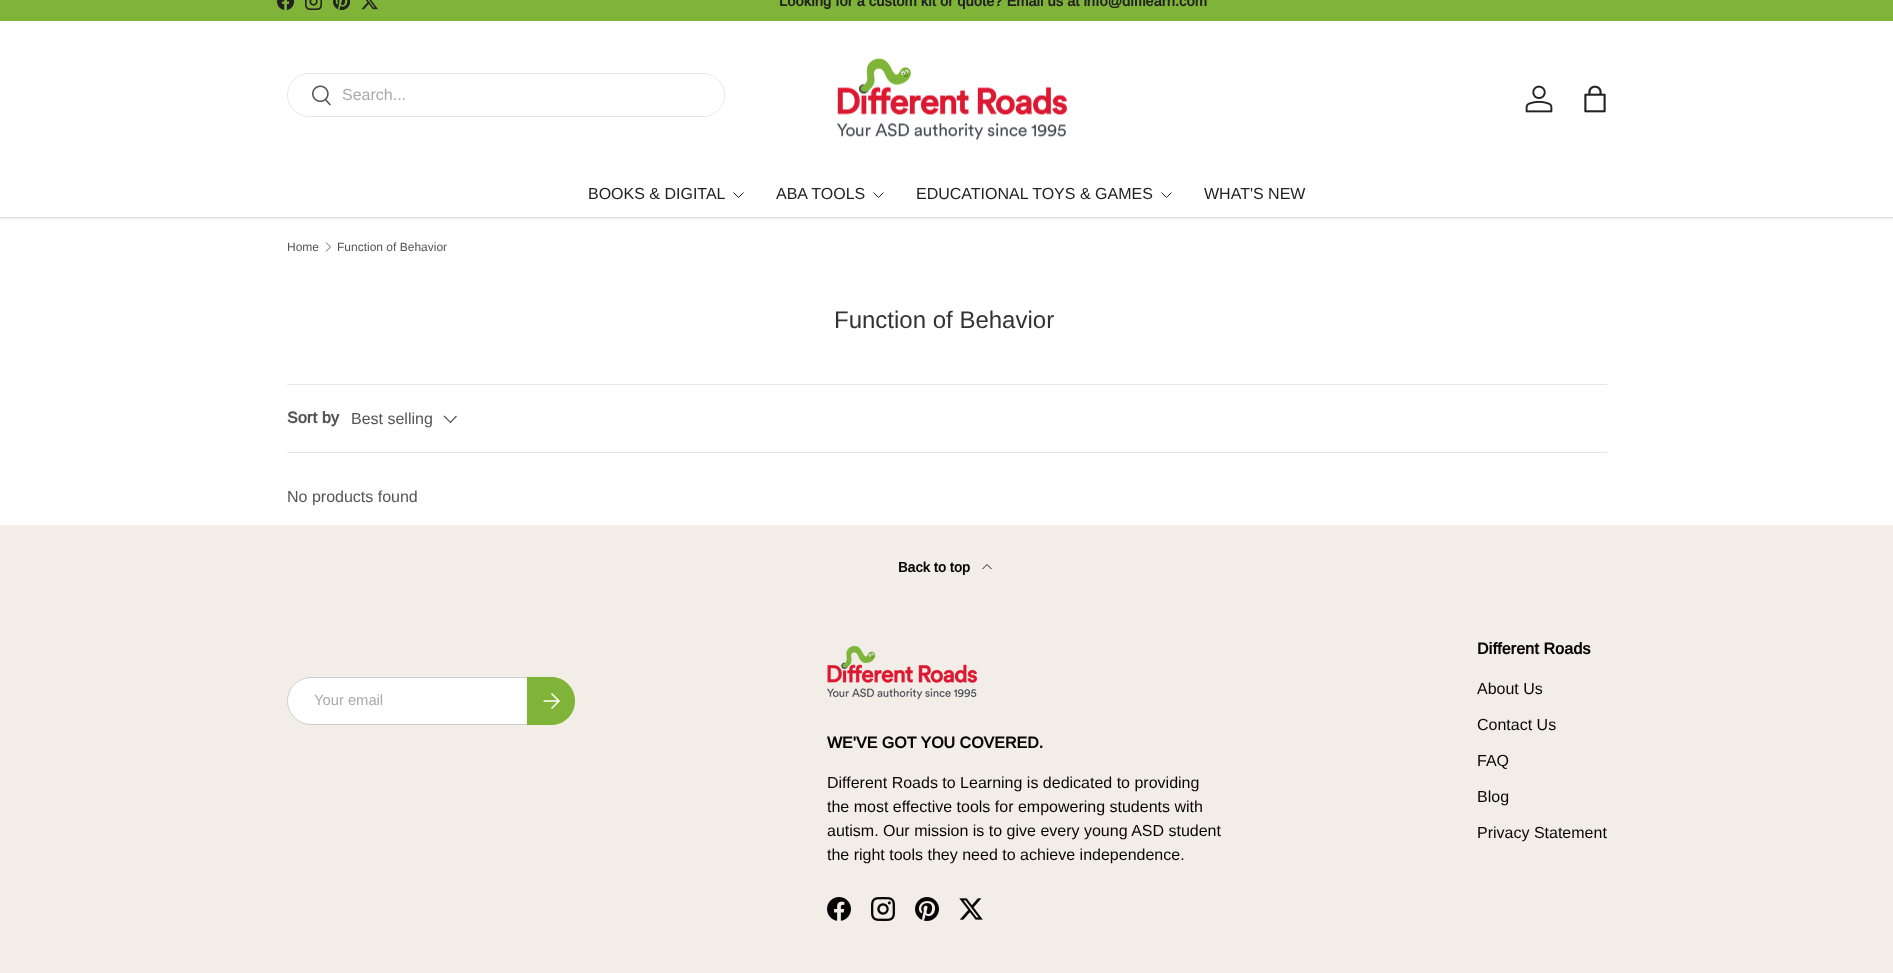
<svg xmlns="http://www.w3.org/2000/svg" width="1893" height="973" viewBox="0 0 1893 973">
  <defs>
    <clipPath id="clip1"><path d="M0 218h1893v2H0z"/></clipPath>
    <linearGradient id="g1" gradientUnits="userSpaceOnUse" x1="430" y1="683" x2="576" y2="719"><stop offset="0.6" stop-color="#99c361"/><stop offset="0.6" stop-color="#7fb438"/><stop offset="1" stop-color="#7fb438"/></linearGradient>
  </defs>
  <rect width="100%" height="100%" fill="#fff"/>
  <g clip-path="url(#clip1)">
    <path d="M-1 20h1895v199H-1z" fill="#00000014" filter="blur(1.5px)"/>
  </g>
  <path d="M0 0h1893v21H0z" fill="#7fb438"/>
  <image x="277" y="0" width="17" height="10" href="img/1.png"/>
  <image x="305" y="0" width="17" height="10" href="img/2.png"/>
  <image x="333" y="0" width="17" height="10" href="img/3.png"/>
  <image x="361" y="0" width="17" height="10" href="img/4.png"/>
  <rect x="287.5" y="73.5" width="437" height="43" rx="21.5" fill="none" stroke="#e6e6e6"/>
  <rect x="288" y="74" width="436" height="42" rx="21" fill="#fff"/>
  <image x="312" y="85" width="19" height="21" href="img/5.png"/>
  <image x="837" y="58" width="230" height="83" href="img/6.png"/>
  <image x="1525" y="85" width="28" height="28" href="img/7.png"/>
  <image x="1584" y="85" width="22" height="28" href="img/8.png"/>
  <path d="M743.5 192.5L738.5 197.5L733.5 192.5" fill="none" stroke="#222"/>
  <path d="M883.5 192.5L878.5 197.5L873.5 192.5" fill="none" stroke="#222"/>
  <path d="M1171.5 192.5L1166.5 197.5L1161.5 192.5" fill="none" stroke="#222"/>
  <path d="M0 217h1893v1H0z" fill="#dedede"/>
  <path d="M326 242.5L330.5 247L326 251.5" fill="none" stroke="#555" stroke-width="0.9"/>
  <path d="M287 384h1320v1H287z" fill="#e6e6e6"/>
  <path d="M287 452h1320v1H287z" fill="#e6e6e6"/>
  <path d="M456.5 416L450.5 422.5L444 416" fill="none" stroke="#555" stroke-width="1.2"/>
  <path d="M0 525h1893v448H0z" fill="#f3ede8"/>
  <path d="M982.5 569L987 564.5L991.5 569" fill="none" stroke="#070707" stroke-width="0.9"/>
  <rect x="287" y="677" width="286" height="48" rx="24" fill="#fff"/>
  <rect x="287.5" y="677.5" width="285" height="47" rx="23.5" fill="none" stroke="#07070733"/>
  <path d="M527 677H551C564.5 677 575 687.5 575 701C575 714.5 564.5 725 551 725H527Z" fill="url(#g1)"/>
  <path d="M543.5 701H558.5M551.5 693.5L559 701L551.5 708.5" fill="none" stroke="#fff" stroke-width="1.5"/>
  <image x="827" y="645" width="150" height="55" href="img/9.png"/>
  <image x="827" y="897" width="24" height="24" href="img/10.png"/>
  <image x="871" y="897" width="24" height="24" href="img/11.png"/>
  <image x="915" y="897" width="24" height="24" href="img/12.png"/>
  <image x="959" y="898" width="24" height="22" href="img/13.png"/>
  <text x="779" y="6" font-family="Arimo" font-size="14.4" font-weight="bold" fill="#222">Looking for a custom kit or quote? Email us at info@difflearn.com</text>
  <text x="342" y="100" font-family="Arimo" font-size="16" fill="#aaa">Search...</text>
  <g font-family="Arimo" font-size="16" fill="#222">
    <text x="588" y="199">BOOKS &amp; DIGITAL</text>
    <text x="776" y="199">ABA TOOLS</text>
    <text x="916" y="199">EDUCATIONAL TOYS &amp; GAMES</text>
    <text x="1204" y="199">WHAT'S NEW</text>
  </g>
  <g font-family="Arimo" font-size="12" fill="#555">
    <text x="287" y="251">Home</text>
    <text x="337" y="251">Function of Behavior</text>
  </g>
  <text x="834" y="328" font-family="Arimo" font-size="24" fill="#333">Function of Behavior</text>
  <text x="287" y="423" font-family="Arimo" font-size="16" font-weight="bold" fill="#555">Sort by</text>
  <g font-family="Arimo" font-size="16" fill="#555">
    <text x="351" y="424">Best selling</text>
    <text x="287" y="502">No products found</text>
  </g>
  <text x="898" y="572" font-family="Arimo" font-size="14" font-weight="bold" fill="#070707">Back to top</text>
  <text x="314" y="705" font-family="Arimo" font-size="14.75" fill="#aaa">Your email</text>
  <text x="1477" y="654" font-family="Arimo" font-size="16" font-weight="bold" fill="#070707">Different Roads</text>
  <g font-family="Arimo" font-size="16" fill="#070707">
    <text x="1477" y="694">About Us</text>
    <text x="1477" y="730">Contact Us</text>
    <text x="1477" y="766">FAQ</text>
    <text x="1477" y="802">Blog</text>
    <text x="1477" y="838">Privacy Statement</text>
  </g>
  <text x="827" y="748" font-family="Arimo" font-size="16" font-weight="bold" fill="#070707">WE'VE GOT YOU COVERED.</text>
  <g font-family="Arimo" font-size="16" fill="#070707">
    <text x="827" y="788">Different Roads to Learning is dedicated to providing</text>
    <text x="827" y="812">the most effective tools for empowering students with</text>
    <text x="827" y="836">autism. Our mission is to give every young ASD student</text>
    <text x="827" y="860">the right tools they need to achieve independence.</text>
  </g>
</svg>
